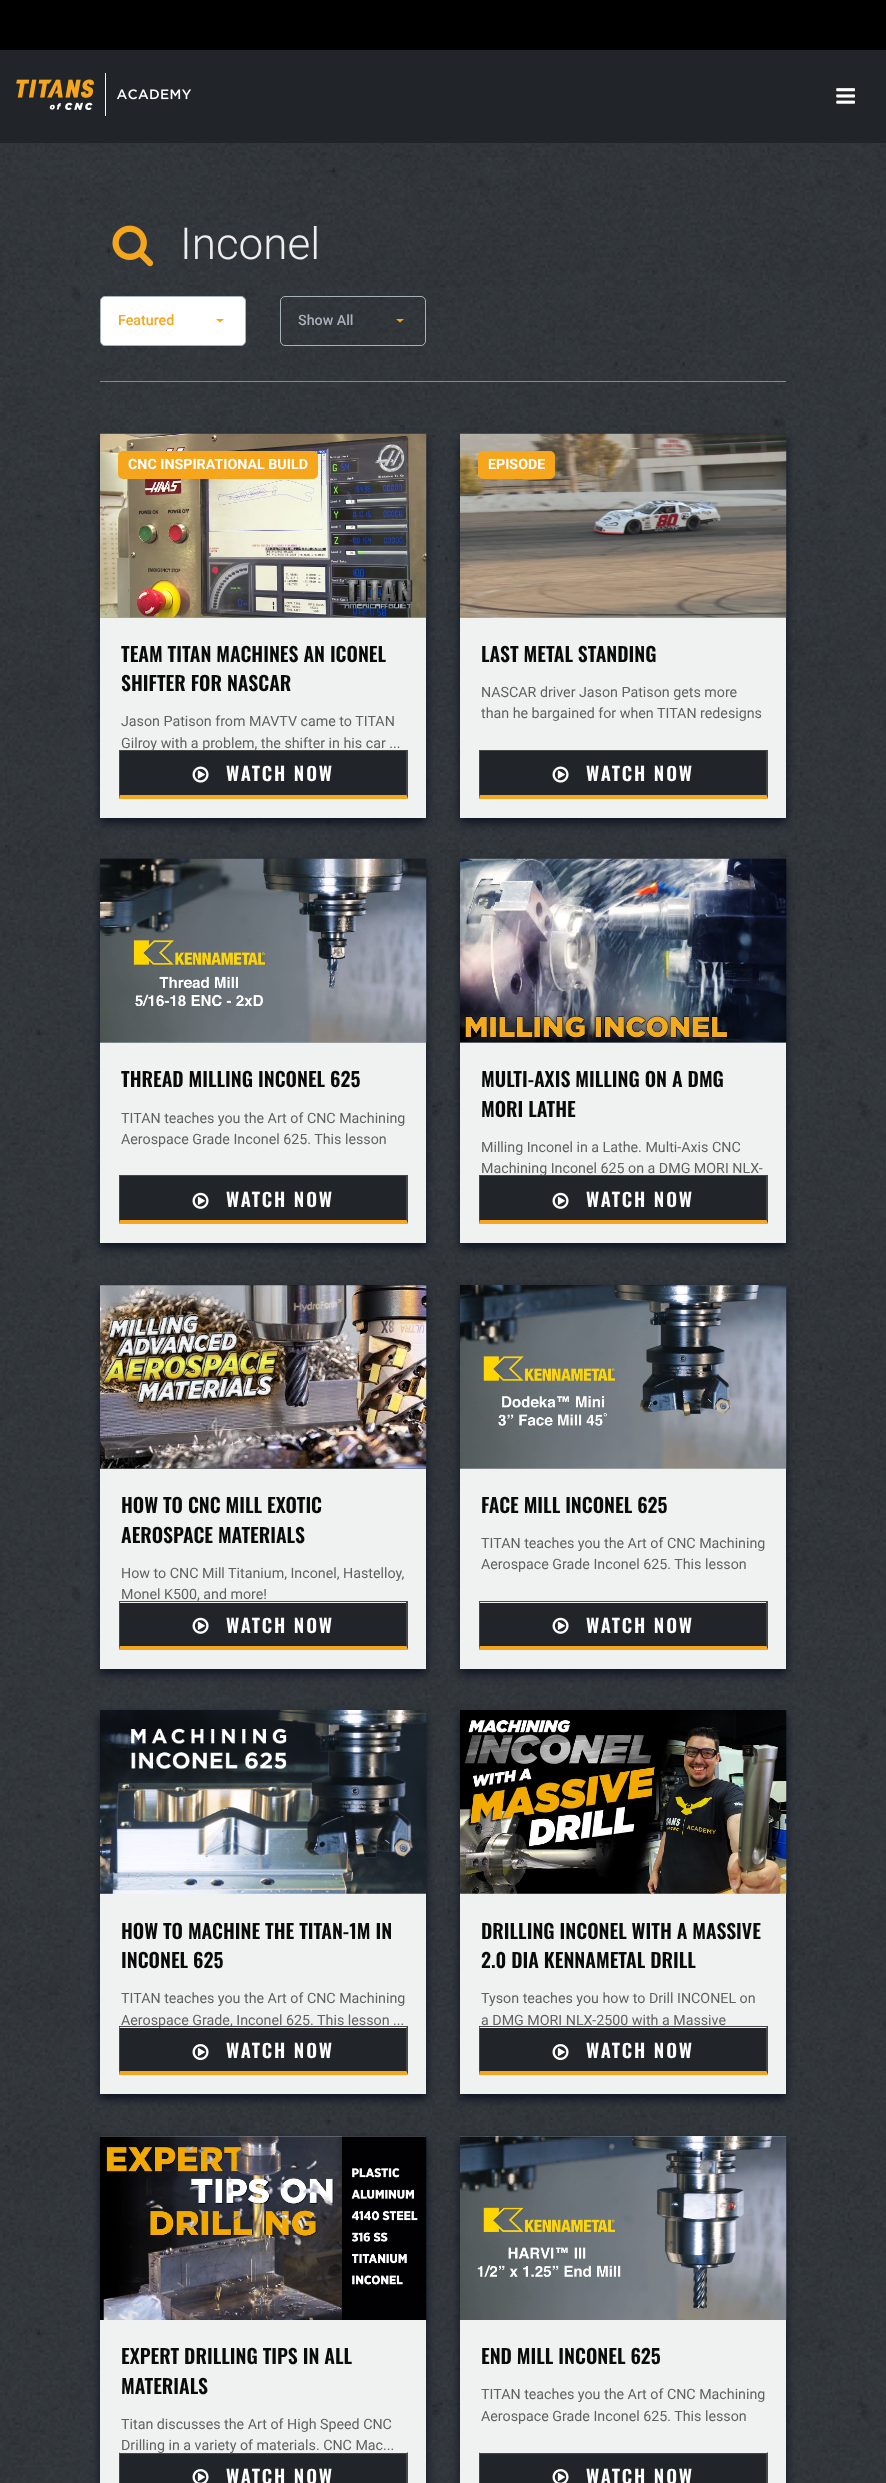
<svg xmlns="http://www.w3.org/2000/svg" width="886" height="2483" viewBox="0 0 886 2483">
  <rect width="100%" height="100%" fill="#fff"/>
  <path d="M0 0h886v50H0z" fill="#000"/>
  <path d="M0 50h886v93H0z" fill="#212529"/>
  <image x="16" y="73" width="175" height="43" href="img/1.png"/>
  <image x="836" y="88" width="19" height="16" href="img/2.png"/>
  <image x="0" y="143" width="886" height="2340" href="img/3.png"/>
  <image x="112" y="225" width="42" height="42" href="img/4.png"/>
  <rect x="100.5" y="296.5" width="145" height="49" rx="4.5" fill="#fff" stroke="#a7b3ba"/>
  <path d="M216 319H224L220 322.5Z" fill="#f6a61d"/>
  <rect x="280.5" y="296.5" width="145" height="49" rx="4.5" fill="none" stroke="#a7b3ba"/>
  <path d="M396 319H404L400 322.5Z" fill="#f6a61d"/>
  <path d="M100 381h686v1H100z" fill="#eeeeee80"/>
  <path d="M100 381h686v1H100z" fill="#0000000d"/>
  <path d="M100 439h326v384H100z" fill="#0d1322" filter="blur(5px)"/>
  <path d="M100 618h326v200H100z" fill="#f0f1f1"/>
  <path d="M100 617h326v1H100z" fill="#a7b3ba"/>
  <image x="100" y="433" width="327" height="185" href="img/5.png"/>
  <rect x="118" y="451" width="200" height="28" rx="5" fill="#f6a61d"/>
  <path d="M120 751h286v44H120z" fill="#212529"/>
  <image x="192" y="766" width="17" height="17" href="img/6.png"/>
  <path d="M460 439h326v384H460z" fill="#0d1322" filter="blur(5px)"/>
  <path d="M460 618h326v200H460z" fill="#f0f1f1"/>
  <path d="M460 617h326v1H460z" fill="#a7b3ba"/>
  <image x="460" y="433" width="327" height="185" href="img/7.png"/>
  <rect x="478" y="451" width="77" height="28" rx="5" fill="#f6a61d"/>
  <path d="M480 751h286v44H480z" fill="#212529"/>
  <path d="M479 750h289v1H479z" fill="#464646"/>
  <path d="M768 750V799L766 795V751Z" fill="#464646"/>
  <path d="M768 799H479L480 795H766Z" fill="#f6a61d"/>
  <path d="M479 799V750L480 751V795Z" fill="#464646"/>
  <image x="552" y="766" width="17" height="17" href="img/6.png"/>
  <path d="M100 864h326v384H100z" fill="#0d1322" filter="blur(5px)"/>
  <path d="M100 1043h326v200H100z" fill="#f0f1f1"/>
  <path d="M100 1042h326v1H100z" fill="#a7b3ba"/>
  <image x="100" y="858" width="327" height="185" href="img/8.png"/>
  <path d="M120 1176h286v44H120z" fill="#212529"/>
  <path d="M119 1175h289v1H119z" fill="#464646"/>
  <path d="M408 1175V1224L406 1220V1176Z" fill="#464646"/>
  <path d="M408 1224H119L120 1220H406Z" fill="#f6a61d"/>
  <path d="M119 1224V1175L120 1176V1220Z" fill="#464646"/>
  <image x="192" y="1192" width="17" height="17" href="img/9.png"/>
  <path d="M460 864h326v384H460z" fill="#0d1322" filter="blur(5px)"/>
  <path d="M460 1043h326v200H460z" fill="#f0f1f1"/>
  <path d="M460 1042h326v1H460z" fill="#a7b3ba"/>
  <image x="460" y="858" width="327" height="185" href="img/10.png"/>
  <path d="M480 1176h286v44H480z" fill="#212529"/>
  <image x="552" y="1192" width="17" height="17" href="img/9.png"/>
  <path d="M100 1290h326v384H100z" fill="#0d1322" filter="blur(5px)"/>
  <path d="M100 1468h326v201H100z" fill="#f0f1f1"/>
  <image x="100" y="1285" width="327" height="184" href="img/11.png"/>
  <path d="M120 1603h286v43H120z" fill="#212529"/>
  <path d="M119 1601h289v1H119z" fill="#464646"/>
  <path d="M408 1601V1650L406 1646V1602Z" fill="#464646"/>
  <path d="M408 1650H119L120 1646H406Z" fill="#f6a61d"/>
  <path d="M119 1650V1601L120 1602V1646Z" fill="#464646"/>
  <image x="192" y="1617" width="17" height="17" href="img/9.png"/>
  <path d="M460 1290h326v384H460z" fill="#0d1322" filter="blur(5px)"/>
  <path d="M460 1468h326v201H460z" fill="#f0f1f1"/>
  <image x="460" y="1285" width="327" height="184" href="img/12.png"/>
  <path d="M480 1603h286v43H480z" fill="#212529"/>
  <path d="M479 1601h289v1H479z" fill="#464646"/>
  <path d="M768 1601V1650L766 1646V1602Z" fill="#464646"/>
  <path d="M768 1650H479L480 1646H766Z" fill="#f6a61d"/>
  <path d="M479 1650V1601L480 1602V1646Z" fill="#464646"/>
  <image x="552" y="1617" width="17" height="17" href="img/9.png"/>
  <path d="M100 1715h326v384H100z" fill="#0d1322" filter="blur(5px)"/>
  <path d="M100 1893h326v201H100z" fill="#f0f1f1"/>
  <image x="100" y="1710" width="327" height="184" href="img/13.png"/>
  <path d="M120 2028h286v43H120z" fill="#212529"/>
  <image x="192" y="2044" width="17" height="17" href="img/14.png"/>
  <path d="M460 1715h326v384H460z" fill="#0d1322" filter="blur(5px)"/>
  <path d="M460 1893h326v201H460z" fill="#f0f1f1"/>
  <image x="460" y="1710" width="327" height="184" href="img/15.png"/>
  <path d="M480 2028h286v43H480z" fill="#212529"/>
  <path d="M479 2026h289v1H479z" fill="#464646"/>
  <path d="M768 2026V2075L766 2071V2028Z" fill="#464646"/>
  <path d="M768 2075H479L480 2071H766Z" fill="#f6a61d"/>
  <path d="M479 2075V2026L480 2028V2071Z" fill="#464646"/>
  <image x="552" y="2044" width="17" height="17" href="img/14.png"/>
  <path d="M100 2141h326v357H100z" fill="#0d1322" filter="blur(5px)"/>
  <path d="M100 2136h326v347H100z" fill="#f0f1f1"/>
  <image x="100" y="2136" width="327" height="184" href="img/16.png"/>
  <path d="M120 2454h286v29H120z" fill="#212529"/>
  <path d="M119 2453h289v1H119z" fill="#464646"/>
  <path d="M408 2452V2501L406 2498V2454Z" fill="#464646"/>
  <path d="M119 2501V2452L120 2454V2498Z" fill="#464646"/>
  <image x="192" y="2469" width="17" height="14" href="img/17.png"/>
  <path d="M460 2141h326v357H460z" fill="#0d1322" filter="blur(5px)"/>
  <path d="M460 2136h326v347H460z" fill="#f0f1f1"/>
  <image x="460" y="2136" width="327" height="184" href="img/18.png"/>
  <path d="M480 2454h286v29H480z" fill="#212529"/>
  <path d="M479 2453h289v1H479z" fill="#464646"/>
  <path d="M768 2452V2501L766 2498V2454Z" fill="#464646"/>
  <path d="M479 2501V2452L480 2454V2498Z" fill="#464646"/>
  <image x="552" y="2469" width="17" height="14" href="img/17.png"/>
  <text x="180" y="259" font-family="Roboto" font-size="44" font-weight="300" fill="#eee">Inconel</text>
  <text x="118" y="325" font-family="Roboto" font-size="14.25" font-weight="500" fill="#f6a61d">Featured</text>
  <text x="298" y="325" font-family="Roboto" font-size="14.25" font-weight="500" fill="#a7b3ba">Show All</text>
  <text x="128" y="469" font-family="Roboto" font-size="14.25" font-weight="bold" fill="#fff">CNC INSPIRATIONAL BUILD</text>
  <g font-family="Oswald" font-size="19.75" font-weight="600" fill="#0a0a0a">
    <text x="121" y="662">TEAM TITAN MACHINES AN ICONEL</text>
    <text x="121" y="691">SHIFTER FOR NASCAR</text>
  </g>
  <g font-family="Roboto" font-size="14.25" fill="#626162">
    <text x="121" y="726">Jason Patison from MAVTV came to TITAN</text>
    <text x="121" y="748">Gilroy with a problem, the shifter in his car ...</text>
  </g>
  <path d="M119 750h289v1H119z" fill="#464646"/>
  <path d="M408 750V799L406 795V751Z" fill="#464646"/>
  <path d="M408 799H119L120 795H406Z" fill="#f6a61d"/>
  <path d="M119 799V750L120 751V795Z" fill="#464646"/>
  <text x="226" y="781" font-family="Oswald" font-size="18.75" font-weight="600" letter-spacing="1.9" fill="#fff">WATCH NOW</text>
  <text x="488" y="469" font-family="Roboto" font-size="14.25" font-weight="bold" fill="#fff">EPISODE</text>
  <text x="481" y="662" font-family="Oswald" font-size="19.75" font-weight="600" fill="#0a0a0a">LAST METAL STANDING</text>
  <g font-family="Roboto" font-size="14.25" fill="#626162">
    <text x="481" y="697">NASCAR driver Jason Patison gets more</text>
    <text x="481" y="718">than he bargained for when TITAN redesigns</text>
  </g>
  <text x="586" y="781" font-family="Oswald" font-size="18.75" font-weight="600" letter-spacing="1.9" fill="#fff">WATCH NOW</text>
  <text x="121" y="1087" font-family="Oswald" font-size="19.75" font-weight="600" fill="#0a0a0a">THREAD MILLING INCONEL 625</text>
  <g font-family="Roboto" font-size="14.25" fill="#626162">
    <text x="121" y="1123">TITAN teaches you the Art of CNC Machining</text>
    <text x="121" y="1144">Aerospace Grade Inconel 625. This lesson</text>
  </g>
  <text x="226" y="1207" font-family="Oswald" font-size="18.75" font-weight="600" letter-spacing="1.9" fill="#fff">WATCH NOW</text>
  <g font-family="Oswald" font-size="19.75" font-weight="600" fill="#0a0a0a">
    <text x="481" y="1087">MULTI-AXIS MILLING ON A DMG</text>
    <text x="481" y="1117">MORI LATHE</text>
  </g>
  <g font-family="Roboto" font-size="14.25" fill="#626162">
    <text x="481" y="1152">Milling Inconel in a Lathe. Multi-Axis CNC</text>
    <text x="481" y="1173">Machining Inconel 625 on a DMG MORI NLX-</text>
  </g>
  <path d="M479 1175h289v1H479z" fill="#464646"/>
  <path d="M768 1175V1224L766 1220V1176Z" fill="#464646"/>
  <path d="M768 1224H479L480 1220H766Z" fill="#f6a61d"/>
  <path d="M479 1224V1175L480 1176V1220Z" fill="#464646"/>
  <text x="586" y="1207" font-family="Oswald" font-size="18.75" font-weight="600" letter-spacing="1.9" fill="#fff">WATCH NOW</text>
  <g font-family="Oswald" font-size="19.75" font-weight="600" fill="#0a0a0a">
    <text x="121" y="1513">HOW TO CNC MILL EXOTIC</text>
    <text x="121" y="1543">AEROSPACE MATERIALS</text>
  </g>
  <g font-family="Roboto" font-size="14.25" fill="#626162">
    <text x="121" y="1578">How to CNC Mill Titanium, Inconel, Hastelloy,</text>
    <text x="121" y="1599">Monel K500, and more!</text>
  </g>
  <text x="226" y="1633" font-family="Oswald" font-size="18.75" font-weight="600" letter-spacing="1.9" fill="#fff">WATCH NOW</text>
  <text x="481" y="1513" font-family="Oswald" font-size="19.75" font-weight="600" fill="#0a0a0a">FACE MILL INCONEL 625</text>
  <g font-family="Roboto" font-size="14.25" fill="#626162">
    <text x="481" y="1548">TITAN teaches you the Art of CNC Machining</text>
    <text x="481" y="1569">Aerospace Grade Inconel 625. This lesson</text>
  </g>
  <text x="586" y="1633" font-family="Oswald" font-size="18.75" font-weight="600" letter-spacing="1.9" fill="#fff">WATCH NOW</text>
  <g font-family="Oswald" font-size="19.75" font-weight="600" fill="#0a0a0a">
    <text x="121" y="1939">HOW TO MACHINE THE TITAN-1M IN</text>
    <text x="121" y="1968">INCONEL 625</text>
  </g>
  <g font-family="Roboto" font-size="14.25" fill="#626162">
    <text x="121" y="2003">TITAN teaches you the Art of CNC Machining</text>
    <text x="121" y="2025">Aerospace Grade, Inconel 625. This lesson ...</text>
  </g>
  <path d="M119 2026h289v1H119z" fill="#464646"/>
  <path d="M408 2026V2075L406 2071V2028Z" fill="#464646"/>
  <path d="M408 2075H119L120 2071H406Z" fill="#f6a61d"/>
  <path d="M119 2075V2026L120 2028V2071Z" fill="#464646"/>
  <text x="226" y="2058" font-family="Oswald" font-size="18.75" font-weight="600" letter-spacing="1.9" fill="#fff">WATCH NOW</text>
  <g font-family="Oswald" font-size="19.75" font-weight="600" fill="#0a0a0a">
    <text x="481" y="1939">DRILLING INCONEL WITH A MASSIVE</text>
    <text x="481" y="1968">2.0 DIA KENNAMETAL DRILL</text>
  </g>
  <g font-family="Roboto" font-size="14.25" fill="#626162">
    <text x="481" y="2003">Tyson teaches you how to Drill INCONEL on</text>
    <text x="481" y="2025">a DMG MORI NLX-2500 with a Massive</text>
  </g>
  <text x="586" y="2058" font-family="Oswald" font-size="18.75" font-weight="600" letter-spacing="1.9" fill="#fff">WATCH NOW</text>
  <g font-family="Oswald" font-size="19.75" font-weight="600" fill="#0a0a0a">
    <text x="121" y="2364">EXPERT DRILLING TIPS IN ALL</text>
    <text x="121" y="2394">MATERIALS</text>
  </g>
  <g font-family="Roboto" font-size="14.25" fill="#626162">
    <text x="121" y="2429">Titan discusses the Art of High Speed CNC</text>
    <text x="121" y="2450">Drilling in a variety of materials. CNC Mac...</text>
  </g>
  <text x="226" y="2484" font-family="Oswald" font-size="18.75" font-weight="600" letter-spacing="1.9" fill="#fff">WATCH NOW</text>
  <text x="481" y="2364" font-family="Oswald" font-size="19.75" font-weight="600" fill="#0a0a0a">END MILL INCONEL 625</text>
  <g font-family="Roboto" font-size="14.25" fill="#626162">
    <text x="481" y="2399">TITAN teaches you the Art of CNC Machining</text>
    <text x="481" y="2421">Aerospace Grade Inconel 625. This lesson</text>
  </g>
  <text x="586" y="2484" font-family="Oswald" font-size="18.75" font-weight="600" letter-spacing="1.9" fill="#fff">WATCH NOW</text>
</svg>
